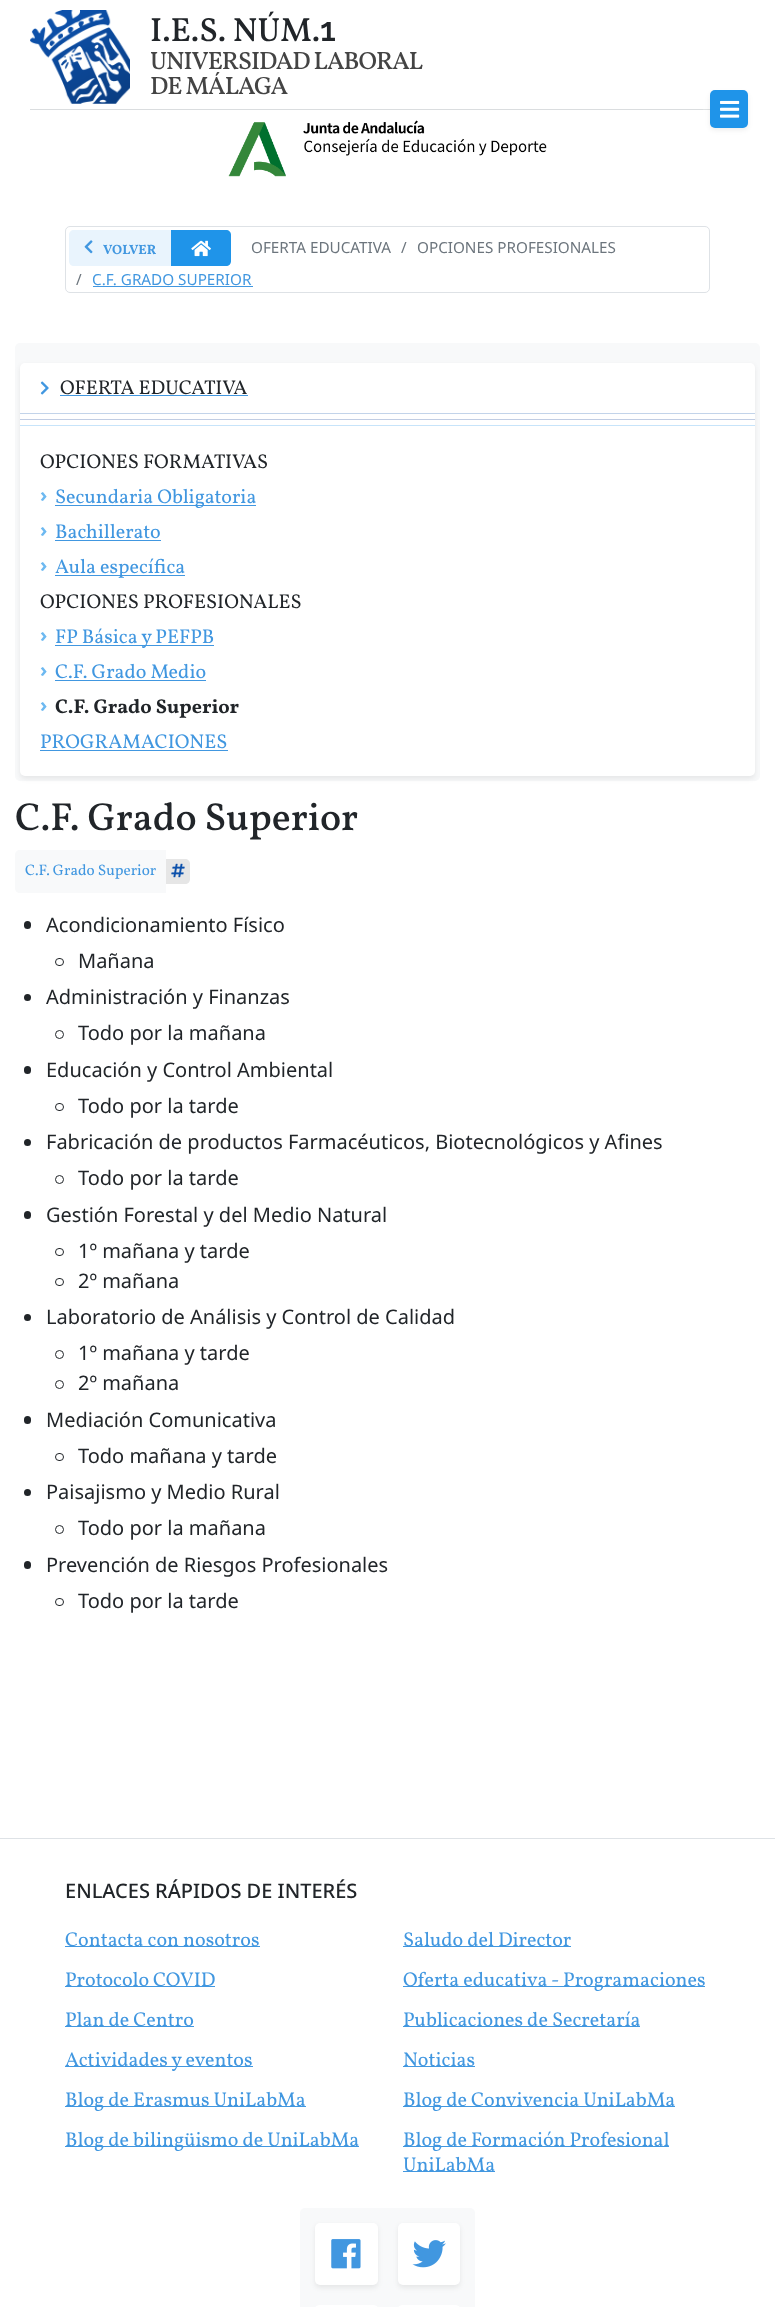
<svg xmlns="http://www.w3.org/2000/svg" width="775" height="2307" viewBox="0 0 775 2307">
  <rect width="100%" height="100%" fill="#fff"/>
  <image x="30" y="10" width="100" height="94" href="img/1.png"/>
  <path d="M30 109h680v1H30z" fill="#dadddf"/>
  <rect x="703" y="86" width="53" height="47" rx="5" fill="#ffffff26"/>
  <rect x="710" y="93" width="38" height="37" rx="5" fill="#00000012" filter="blur(2.5px)"/>
  <rect x="710" y="90" width="38" height="38" rx="5" fill="#1f94e9"/>
  <image x="720" y="100" width="20" height="18" href="img/2.png"/>
  <image x="228" y="120" width="319" height="57" href="img/3.png"/>
  <rect x="65.5" y="226.5" width="644" height="66" rx="4.5" fill="none" stroke="#dee2e6"/>
  <path d="M74 230H171V266H74C71 266 69 264 69 261V235C69 232 71 230 74 230Z" fill="#e9f4fd"/>
  <image x="84" y="240" width="9" height="14" href="img/4.png"/>
  <path d="M171 230H226C229 230 231 232 231 235V261C231 264 229 266 226 266H171Z" fill="#1f94e9"/>
  <image x="191" y="240" width="20" height="17" href="img/5.png"/>
  <path d="M93 286h160v1H93z" fill="#4197e0"/>
  <rect x="15" y="343" width="745" height="438" rx="5" fill="#f8f9fa"/>
  <rect x="20" y="365" width="735" height="414" rx="5" fill="#00000012" filter="blur(2.5px)"/>
  <rect x="20" y="363" width="735" height="413" rx="5" fill="#fff"/>
  <image x="40" y="381" width="9" height="14" href="img/6.png"/>
  <path d="M60 395h188v1H60z" fill="#4197e0"/>
  <path d="M20 413h735v1H20z" fill="#c3d4ea"/>
  <path d="M20 419h735v1H20z" fill="#c1cde3"/>
  <path d="M20 425h735v1H20z" fill="#c7e4fa"/>
  <path d="M55 505h201v1H55z" fill="#4197e0"/>
  <path d="M55 540h106v1H55z" fill="#4197e0"/>
  <path d="M55 575h130v1H55z" fill="#4197e0"/>
  <path d="M55 645h159v1H55z" fill="#4197e0"/>
  <path d="M55 680h151v1H55z" fill="#4197e0"/>
  <path d="M40 750h188v1H40z" fill="#4197e0"/>
  <path d="M20 850H166V893H20C17 893 15 891 15 888V855C15 852 17 850 20 850Z" fill="#f8f9fa"/>
  <path d="M166 859H185C188 859 190 861 190 864V879C190 882 188 884 185 884H166Z" fill="#e6e6e6"/>
  <image x="171" y="863" width="14" height="15" href="img/7.png"/>
  <rect x="24" y="921" width="7" height="8" rx="3.5" fill="#212529"/>
  <rect x="55.5" y="958.5" width="8" height="7" rx="3.5" fill="none" stroke="#212529"/>
  <circle cx="27.5" cy="997.5" r="3.5" fill="#212529"/>
  <circle cx="59.5" cy="1034.5" r="4" fill="none" stroke="#212529"/>
  <rect x="24" y="1066" width="7" height="8" rx="3.5" fill="#212529"/>
  <rect x="55.5" y="1103.5" width="8" height="7" rx="3.5" fill="none" stroke="#212529"/>
  <circle cx="27.5" cy="1142.5" r="3.5" fill="#212529"/>
  <circle cx="59.5" cy="1179.5" r="4" fill="none" stroke="#212529"/>
  <rect x="24" y="1211" width="7" height="8" rx="3.5" fill="#212529"/>
  <rect x="55.5" y="1248.5" width="8" height="7" rx="3.5" fill="none" stroke="#212529"/>
  <rect x="55.5" y="1278.5" width="8" height="7" rx="3.5" fill="none" stroke="#212529"/>
  <circle cx="27.5" cy="1317.5" r="3.5" fill="#212529"/>
  <circle cx="59.5" cy="1354.5" r="4" fill="none" stroke="#212529"/>
  <circle cx="59.5" cy="1384.5" r="4" fill="none" stroke="#212529"/>
  <rect x="24" y="1416" width="7" height="8" rx="3.5" fill="#212529"/>
  <rect x="55.5" y="1453.5" width="8" height="7" rx="3.5" fill="none" stroke="#212529"/>
  <circle cx="27.5" cy="1492.5" r="3.5" fill="#212529"/>
  <circle cx="59.5" cy="1529.5" r="4" fill="none" stroke="#212529"/>
  <rect x="24" y="1561" width="7" height="8" rx="3.5" fill="#212529"/>
  <rect x="55.5" y="1598.5" width="8" height="7" rx="3.5" fill="none" stroke="#212529"/>
  <path d="M0 1838h775v1H0z" fill="#dee2e6"/>
  <path d="M65 1946h195v1H65z" fill="#4197e0"/>
  <path d="M403 1946h168v1H403z" fill="#4197e0"/>
  <path d="M65 1986h150v1H65z" fill="#4197e0"/>
  <path d="M403 1986h302v1H403z" fill="#4197e0"/>
  <path d="M65 2026h129v1H65z" fill="#4197e0"/>
  <path d="M403 2026h237v1H403z" fill="#4197e0"/>
  <path d="M65 2066h188v1H65z" fill="#4197e0"/>
  <path d="M403 2066h72v1H403z" fill="#4197e0"/>
  <path d="M65 2106h241v1H65z" fill="#4197e0"/>
  <path d="M403 2106h272v1H403z" fill="#4197e0"/>
  <path d="M65 2146h294v1H65z" fill="#4197e0"/>
  <path d="M403 2146h266v1H403z" fill="#4197e0"/>
  <path d="M403 2171h92v1H403z" fill="#4197e0"/>
  <rect x="300" y="2208" width="175" height="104" rx="5" fill="#f8f9fa"/>
  <rect x="315" y="2225" width="63" height="63" rx="5" fill="#00000012" filter="blur(2.5px)"/>
  <rect x="315" y="2223" width="63" height="62" rx="5" fill="#fff"/>
  <image x="331" y="2239" width="30" height="30" href="img/8.png"/>
  <rect x="398" y="2225" width="62" height="63" rx="5" fill="#00000012" filter="blur(2.5px)"/>
  <rect x="398" y="2223" width="62" height="62" rx="5" fill="#fff"/>
  <image x="412" y="2240" width="34" height="28" href="img/9.png"/>
  <rect x="315" y="2305" width="63" height="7" rx="5" fill="#fff"/>
  <rect x="398" y="2305" width="62" height="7" rx="5" fill="#fff"/>
  <text x="150" y="41" font-family="Vollkorn" font-size="33.5" font-weight="500" fill="#212529">I.E.S. NÚM.</text>
  <text x="320" y="41" font-family="Raleway" font-size="33.5" font-weight="600" fill="#212529">1</text>
  <g font-family="Vollkorn" font-size="25" font-weight="500" letter-spacing="-1" fill="#444">
    <text x="150" y="69">UNIVERSIDAD LABORAL</text>
    <text x="150" y="94">DE MÁLAGA</text>
  </g>
  <text x="103" y="254" font-family="Vollkorn" font-size="13.5" font-weight="bold" fill="#4197e0">VOLVER</text>
  <g font-family="Noto Sans" font-size="15.25" fill="#6c757d">
    <text x="251" y="253">OFERTA EDUCATIVA</text>
    <text x="401" y="253">/</text>
    <text x="417" y="253">OPCIONES PROFESIONALES</text>
    <text x="76" y="285">/</text>
  </g>
  <text x="92" y="285" font-family="Noto Sans" font-size="15.25" fill="#4197e0">C.F. GRADO SUPERIOR</text>
  <g font-family="Vollkorn" font-size="20" fill="#212529">
    <text x="60" y="394">OFERTA EDUCATIVA</text>
    <text x="40" y="468">OPCIONES FORMATIVAS</text>
  </g>
  <text x="40" y="502" font-family="Noto Sans" font-size="20" font-weight="bold" fill="#6db9f1">›</text>
  <text x="55" y="503" font-family="Vollkorn" font-size="20" fill="#4197e0">Secundaria Obligatoria</text>
  <text x="40" y="537" font-family="Noto Sans" font-size="20" font-weight="bold" fill="#6db9f1">›</text>
  <text x="55" y="538" font-family="Vollkorn" font-size="20" fill="#4197e0">Bachillerato</text>
  <text x="40" y="572" font-family="Noto Sans" font-size="20" font-weight="bold" fill="#6db9f1">›</text>
  <text x="55" y="573" font-family="Vollkorn" font-size="20" fill="#4197e0">Aula específica</text>
  <text x="40" y="608" font-family="Vollkorn" font-size="20" fill="#212529">OPCIONES PROFESIONALES</text>
  <text x="40" y="642" font-family="Noto Sans" font-size="20" font-weight="bold" fill="#6db9f1">›</text>
  <text x="55" y="643" font-family="Vollkorn" font-size="20" fill="#4197e0">FP Básica y PEFPB</text>
  <text x="40" y="677" font-family="Noto Sans" font-size="20" font-weight="bold" fill="#6db9f1">›</text>
  <text x="55" y="678" font-family="Vollkorn" font-size="20" fill="#4197e0">C.F. Grado Medio</text>
  <text x="40" y="712" font-family="Noto Sans" font-size="20" font-weight="bold" fill="#6db9f1">›</text>
  <text x="55" y="713" font-family="Vollkorn" font-size="20" font-weight="bold" fill="#212529">C.F. Grado Superior</text>
  <text x="40" y="748" font-family="Vollkorn" font-size="20" fill="#4197e0">PROGRAMACIONES</text>
  <text x="15" y="830" font-family="Vollkorn" font-size="39.1" font-weight="500" fill="#212529">C.F. Grado Superior</text>
  <text x="25" y="875" font-family="Vollkorn" font-size="15.25" fill="#4197e0">C.F. Grado Superior</text>
  <g font-family="Noto Sans" font-size="20" fill="#212529">
    <text x="46" y="932">Acondicionamiento Físico</text>
    <text x="78" y="968">Mañana</text>
    <text x="46" y="1004">Administración y Finanzas</text>
    <text x="78" y="1040">Todo por la mañana</text>
    <text x="46" y="1077">Educación y Control Ambiental</text>
    <text x="78" y="1113">Todo por la tarde</text>
    <text x="46" y="1149">Fabricación de productos Farmacéuticos, Biotecnológicos y Afines</text>
    <text x="78" y="1185">Todo por la tarde</text>
    <text x="46" y="1222">Gestión Forestal y del Medio Natural</text>
    <text x="78" y="1258">1º mañana y tarde</text>
    <text x="78" y="1288">2º mañana</text>
    <text x="46" y="1324">Laboratorio de Análisis y Control de Calidad</text>
    <text x="78" y="1360">1º mañana y tarde</text>
    <text x="78" y="1390">2º mañana</text>
    <text x="46" y="1427">Mediación Comunicativa</text>
    <text x="78" y="1463">Todo mañana y tarde</text>
    <text x="46" y="1499">Paisajismo y Medio Rural</text>
    <text x="78" y="1535">Todo por la mañana</text>
    <text x="46" y="1572">Prevención de Riesgos Profesionales</text>
    <text x="78" y="1608">Todo por la tarde</text>
  </g>
  <text x="65" y="1898" font-family="Noto Sans" font-size="20" font-weight="500" fill="#212529">ENLACES RÁPIDOS DE INTERÉS</text>
  <g font-family="Vollkorn" font-size="20" fill="#4197e0">
    <text x="65" y="1946">Contacta con nosotros</text>
    <text x="403" y="1946">Saludo del Director</text>
    <text x="65" y="1986">Protocolo COVID</text>
    <text x="403" y="1986">Oferta educativa - Programaciones</text>
    <text x="65" y="2026">Plan de Centro</text>
    <text x="403" y="2026">Publicaciones de Secretaría</text>
    <text x="65" y="2066">Actividades y eventos</text>
    <text x="403" y="2066">Noticias</text>
    <text x="65" y="2106">Blog de Erasmus UniLabMa</text>
    <text x="403" y="2106">Blog de Convivencia UniLabMa</text>
    <text x="65" y="2146">Blog de bilingüismo de UniLabMa</text>
    <text x="403" y="2146">Blog de Formación Profesional</text>
    <text x="403" y="2171">UniLabMa</text>
  </g>
</svg>
